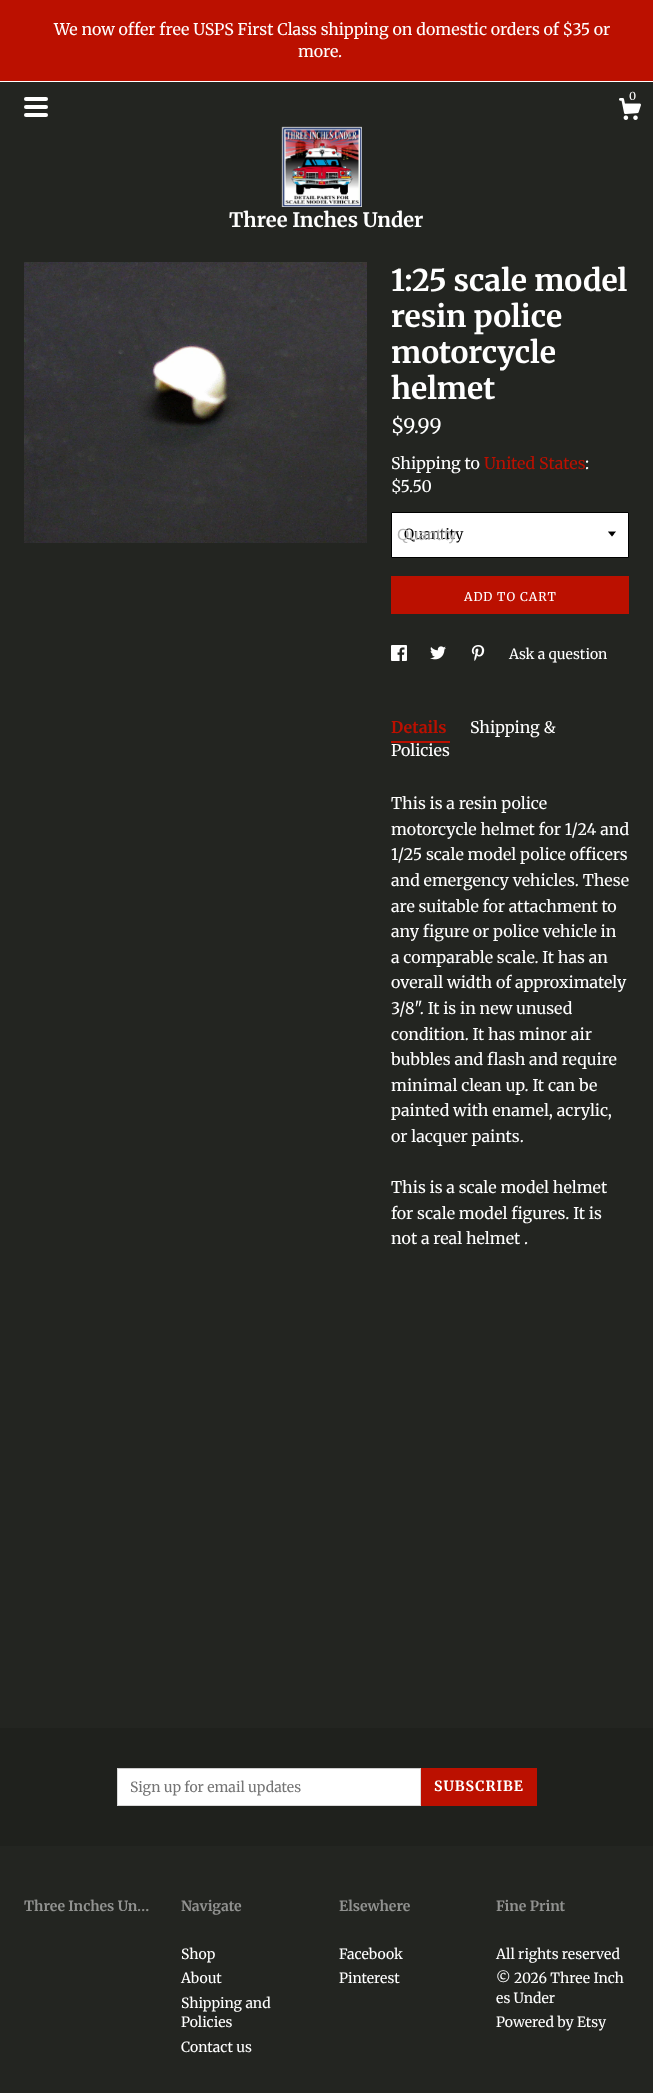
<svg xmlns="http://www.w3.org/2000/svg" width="653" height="2093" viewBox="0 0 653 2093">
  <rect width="100%" height="100%" fill="#232521"/>
  <path d="M0 0h653v81H0z" fill="#bb1000"/>
  <path d="M0 81h653v1H0z" fill="#fff"/>
  <image x="619" y="98" width="22" height="22" href="img/1.png"/>
  <rect x="24" y="97" width="24" height="4" rx="2" fill="#fff"/>
  <rect x="24" y="105" width="24" height="4" rx="2" fill="#fff"/>
  <rect x="24" y="113" width="24" height="4" rx="2" fill="#fff"/>
  <image x="281" y="126" width="81" height="81" href="img/2.png"/>
  <image x="24" y="262" width="343" height="281" href="img/3.png"/>
  <path d="M391.5 512.5h237v45H391.5z" fill="#fff" stroke="#000"/>
  <image x="608" y="531" width="8" height="6" href="img/4.png"/>
  <path d="M615 533L619 537L623 533" fill="none" stroke="#fff" stroke-width="2"/>
  <path d="M391 576h238v38H391z" fill="#bb1000"/>
  <image x="391" y="645" width="16" height="16" href="img/5.png"/>
  <image x="430" y="646" width="16" height="14" href="img/6.png"/>
  <image x="471" y="645" width="14" height="16" href="img/7.png"/>
  <path d="M391 741h59v2H391z" fill="#bb1000"/>
  <path d="M0 1728h653v118H0z" fill="#1f211d"/>
  <path d="M117 1768h304v38H117z" fill="#fff"/>
  <path d="M117 1768H421L420 1769H118Z" fill="#ccc"/>
  <path d="M421 1768V1806L420 1805V1769Z" fill="#00000026"/>
  <path d="M421 1806H117L118 1805H420Z" fill="#00000026"/>
  <path d="M117 1806V1768L118 1769V1805Z" fill="#00000026"/>
  <path d="M421 1768h116v38H421z" fill="#bb1000"/>
  <g font-family="Merriweather" font-size="16" fill="#fff">
    <text x="54" y="35">We now offer free USPS First Class shipping on domestic orders of $35 or</text>
    <text x="298" y="57">more.</text>
  </g>
  <text x="629" y="100" font-family="Merriweather" font-size="11" fill="#fff">0</text>
  <text x="229" y="227" font-family="Merriweather" font-size="20" font-weight="bold" fill="#fff">Three Inches Under</text>
  <g font-family="Merriweather" font-size="30" font-weight="bold" fill="#fff">
    <text x="391" y="291">1:25 scale model</text>
    <text x="391" y="327">resin police</text>
    <text x="391" y="363">motorcycle</text>
    <text x="391" y="399">helmet</text>
  </g>
  <text x="391" y="433" font-family="Merriweather" font-size="20" fill="#fff">$9.99</text>
  <text x="391" y="469" font-family="Merriweather" font-size="16" fill="#fff">Shipping to</text>
  <text x="484" y="469" font-family="Merriweather" font-size="16" fill="#bb1000">United States</text>
  <g font-family="Merriweather" font-size="16" fill="#fff">
    <text x="585" y="469">:</text>
    <text x="391" y="492">$5.50</text>
  </g>
  <text x="404" y="539" font-family="Merriweather" font-size="14" fill="#000">Quantity</text>
  <text x="397" y="540" font-family="Liberation Sans" font-size="16" fill="#b5b5b5">Quantity</text>
  <text x="464" y="601" font-family="Merriweather" font-size="12" letter-spacing="1" fill="#fff">ADD TO CART</text>
  <text x="509" y="659" font-family="Merriweather" font-size="14" fill="#fff">Ask a question</text>
  <text x="391" y="733" font-family="Merriweather" font-size="16" font-weight="bold" fill="#bb1000">Details</text>
  <g font-family="Merriweather" font-size="16" fill="#fff">
    <text x="470" y="733">Shipping &amp;</text>
    <text x="391" y="756">Policies</text>
    <text x="391" y="809">This is a resin police</text>
    <text x="391" y="835">motorcycle helmet for 1/24 and</text>
    <text x="391" y="860">1/25 scale model police officers</text>
    <text x="391" y="886">and emergency vehicles. These</text>
    <text x="391" y="912">are suitable for attachment to</text>
    <text x="391" y="937">any figure or police vehicle in</text>
    <text x="391" y="963">a comparable scale. It has an</text>
    <text x="391" y="988">overall width of approximately</text>
    <text x="391" y="1014">3/8". It is in new unused</text>
    <text x="391" y="1040">condition. It has minor air</text>
    <text x="391" y="1065">bubbles and flash and require</text>
    <text x="391" y="1091">minimal clean up. It can be</text>
    <text x="391" y="1116">painted with enamel, acrylic,</text>
    <text x="391" y="1142">or lacquer paints.</text>
    <text x="391" y="1193">This is a scale model helmet</text>
    <text x="391" y="1219">for scale model figures. It is</text>
    <text x="391" y="1244">not a real helmet .</text>
  </g>
  <text x="130" y="1792" font-family="Merriweather" font-size="14" fill="#757575">Sign up for email updates</text>
  <text x="434" y="1791" font-family="Merriweather" font-size="14" font-weight="bold" letter-spacing="1" fill="#fff">SUBSCRIBE</text>
  <g font-family="Merriweather" font-size="14" font-weight="bold" fill="#919290">
    <text x="24" y="1911">Three Inches Un…</text>
    <text x="181" y="1911">Navigate</text>
  </g>
  <g font-family="Merriweather" font-size="14" fill="#fff">
    <text x="181" y="1959">Shop</text>
    <text x="181" y="1983">About</text>
    <text x="181" y="2008">Shipping and</text>
    <text x="181" y="2027">Policies</text>
    <text x="181" y="2052">Contact us</text>
  </g>
  <text x="339" y="1911" font-family="Merriweather" font-size="14" font-weight="bold" fill="#919290">Elsewhere</text>
  <g font-family="Merriweather" font-size="14" fill="#fff">
    <text x="339" y="1959">Facebook</text>
    <text x="339" y="1983">Pinterest</text>
  </g>
  <text x="496" y="1911" font-family="Merriweather" font-size="14" font-weight="bold" fill="#919290">Fine Print</text>
  <g font-family="Merriweather" font-size="14" fill="#fff">
    <text x="496" y="1959">All rights reserved</text>
    <text x="496" y="1983">© 2026 Three Inch</text>
    <text x="496" y="2003">es Under</text>
    <text x="496" y="2027">Powered by Etsy</text>
  </g>
</svg>
